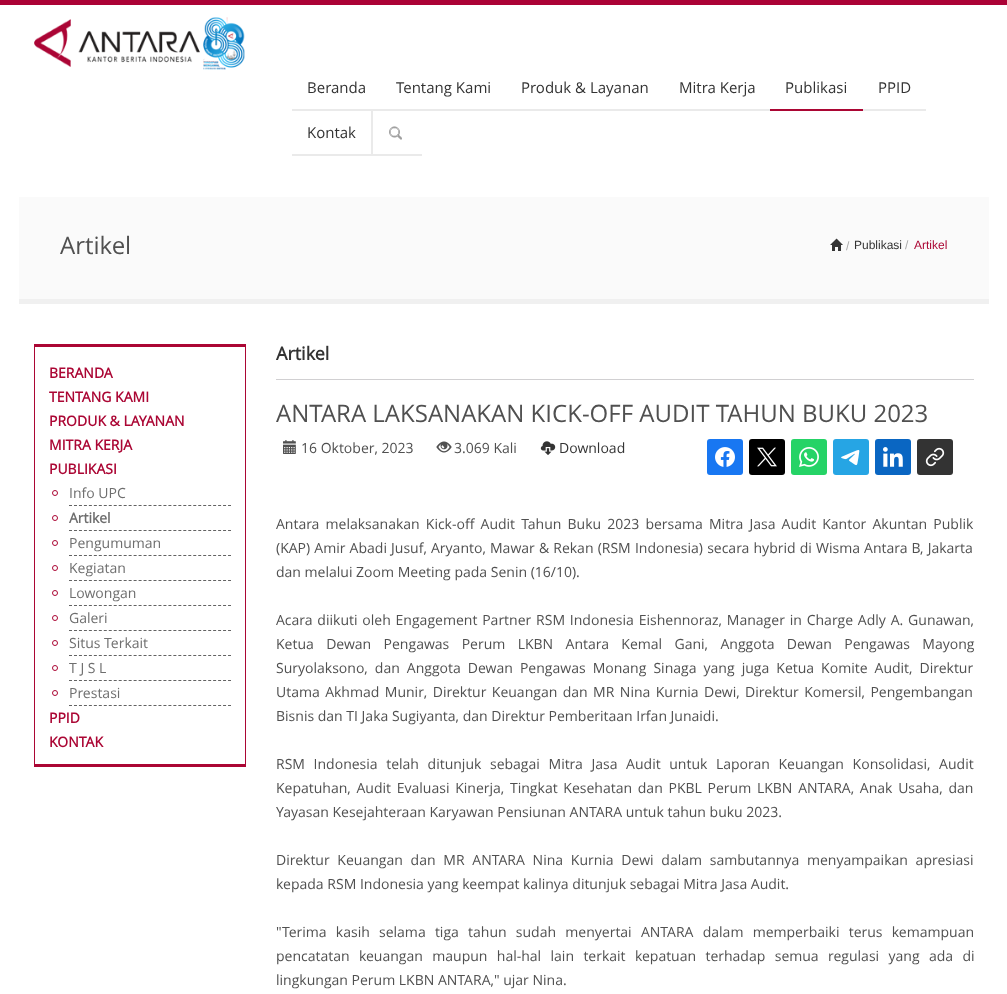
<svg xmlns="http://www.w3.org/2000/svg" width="1007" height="994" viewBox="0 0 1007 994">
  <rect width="100%" height="100%" fill="#fff"/>
  <path d="M0 0h1007v5H0z" fill="#ab0236"/>
  <image x="34" y="17" width="211" height="53" href="img/1.png"/>
  <path d="M292 109h478v2H292z" fill="#eaeaea"/>
  <path d="M770 109h93v2H770z" fill="#ab0634"/>
  <path d="M863 109h63v2H863z" fill="#eaeaea"/>
  <path d="M292 154h130v2H292z" fill="#eaeaea"/>
  <path d="M371 111h2v45H371z" fill="#eaeaea"/>
  <image x="389" y="126" width="13" height="14" href="img/2.png"/>
  <path d="M19 197h970v102H19z" fill="#fafafa"/>
  <path d="M19 299h970v5H19z" fill="#f0f0f0"/>
  <image x="830" y="238" width="13" height="13" href="img/3.png"/>
  <path d="M34 344h212v3H34z" fill="#ab0634"/>
  <path d="M245 344h1v423H245z" fill="#ab0634"/>
  <path d="M34 764h212v3H34z" fill="#ab0634"/>
  <path d="M34 344h1v423H34z" fill="#ab0634"/>
  <path d="M69 505.5H231" fill="none" stroke="#636363" stroke-dasharray="3 1.97"/>
  <circle cx="55" cy="493" r="2.5" fill="none" stroke="#ab0634"/>
  <path d="M69 530.5H231" fill="none" stroke="#636363" stroke-dasharray="3 1.97"/>
  <circle cx="55" cy="518" r="2.5" fill="none" stroke="#ab0634"/>
  <path d="M69 555.5H231" fill="none" stroke="#636363" stroke-dasharray="3 1.97"/>
  <circle cx="55" cy="543" r="2.5" fill="none" stroke="#ab0634"/>
  <path d="M69 580.5H231" fill="none" stroke="#636363" stroke-dasharray="3 1.97"/>
  <circle cx="55" cy="568" r="2.5" fill="none" stroke="#ab0634"/>
  <path d="M69 605.5H231" fill="none" stroke="#636363" stroke-dasharray="3 1.97"/>
  <circle cx="55" cy="593" r="2.5" fill="none" stroke="#ab0634"/>
  <path d="M69 630.5H231" fill="none" stroke="#636363" stroke-dasharray="3 1.97"/>
  <circle cx="55" cy="618" r="2.5" fill="none" stroke="#ab0634"/>
  <path d="M69 655.5H231" fill="none" stroke="#636363" stroke-dasharray="3 1.97"/>
  <circle cx="55" cy="643" r="2.5" fill="none" stroke="#ab0634"/>
  <path d="M69 680.5H231" fill="none" stroke="#636363" stroke-dasharray="3 1.97"/>
  <circle cx="55" cy="668" r="2.5" fill="none" stroke="#ab0634"/>
  <path d="M69 705.5H231" fill="none" stroke="#636363" stroke-dasharray="3 1.97"/>
  <circle cx="55" cy="693" r="2.5" fill="none" stroke="#ab0634"/>
  <path d="M276 379h698v1H276z" fill="#d1d0d2"/>
  <image x="283" y="440" width="13" height="14" href="img/4.png"/>
  <image x="436" y="441" width="16" height="12" href="img/5.png"/>
  <image x="540" y="441" width="16" height="14" href="img/6.png"/>
  <rect x="707" y="439" width="36" height="36" rx="3" fill="#1877f2"/>
  <image x="715" y="447" width="20" height="20" href="img/7.png"/>
  <rect x="749" y="439" width="36" height="36" rx="3" fill="#000"/>
  <image x="757" y="447" width="20" height="20" href="img/8.png"/>
  <rect x="791" y="439" width="36" height="36" rx="3" fill="#25d366"/>
  <image x="799" y="447" width="20" height="20" href="img/9.png"/>
  <rect x="833" y="439" width="36" height="36" rx="3" fill="#26a5e4"/>
  <image x="841" y="450" width="19" height="16" href="img/10.png"/>
  <rect x="875" y="439" width="36" height="36" rx="3" fill="#0a66c2"/>
  <image x="883" y="447" width="20" height="20" href="img/11.png"/>
  <rect x="917" y="439" width="36" height="36" rx="3" fill="#333"/>
  <image x="925" y="447" width="20" height="20" href="img/12.png"/>
  <g font-family="Open Sans" font-size="15" fill="#333">
    <text x="307" y="93">Beranda</text>
    <text x="396" y="93">Tentang Kami</text>
    <text x="521" y="93">Produk &amp; Layanan</text>
    <text x="679" y="93">Mitra Kerja</text>
    <text x="785" y="93">Publikasi</text>
    <text x="878" y="93">PPID</text>
    <text x="307" y="138">Kontak</text>
  </g>
  <text x="60" y="254" font-family="Open Sans" font-size="24" fill="#505050">Artikel</text>
  <text x="846" y="250" font-family="Liberation Sans" font-size="12" fill="#aaa">/</text>
  <text x="854" y="249" font-family="Liberation Sans" font-size="12" fill="#333">Publikasi</text>
  <text x="905" y="249" font-family="Liberation Sans" font-size="12" fill="#aaa">/</text>
  <text x="914" y="249" font-family="Liberation Sans" font-size="12" fill="#ab0634">Artikel</text>
  <g font-family="Open Sans" font-size="14" font-weight="bold" fill="#ab0634">
    <text x="49" y="378">BERANDA</text>
    <text x="49" y="402">TENTANG KAMI</text>
    <text x="49" y="426">PRODUK &amp; LAYANAN</text>
    <text x="49" y="450">MITRA KERJA</text>
    <text x="49" y="474">PUBLIKASI</text>
  </g>
  <text x="69" y="498" font-family="Open Sans" font-size="14" fill="#6e6e6e">Info UPC</text>
  <text x="69" y="523" font-family="Open Sans" font-size="14" font-weight="bold" fill="#6e6e6e">Artikel</text>
  <g font-family="Open Sans" font-size="14" fill="#6e6e6e">
    <text x="69" y="548">Pengumuman</text>
    <text x="69" y="573">Kegiatan</text>
    <text x="69" y="598">Lowongan</text>
    <text x="69" y="623">Galeri</text>
    <text x="69" y="648">Situs Terkait</text>
    <text x="69" y="673">T J S L</text>
    <text x="69" y="698">Prestasi</text>
  </g>
  <g font-family="Open Sans" font-size="14" font-weight="bold" fill="#ab0634">
    <text x="49" y="723">PPID</text>
    <text x="49" y="747">KONTAK</text>
  </g>
  <text x="276" y="360" font-family="Open Sans" font-size="18" font-weight="bold" fill="#333">Artikel</text>
  <text x="276" y="422" font-family="Open Sans" font-size="24" fill="#505050">ANTARA LAKSANAKAN KICK-OFF AUDIT TAHUN BUKU 2023</text>
  <g font-family="Open Sans" font-size="14" fill="#505050">
    <text x="301" y="453">16 Oktober, 2023</text>
    <text x="454" y="453">3.069 Kali</text>
  </g>
  <text x="559" y="453" font-family="Open Sans" font-size="14" fill="#333">Download</text>
  <g font-family="Open Sans" font-size="14" fill="#505050">
    <text x="276" y="529" word-spacing="2.5">Antara melaksanakan Kick-off Audit Tahun Buku 2023 bersama Mitra Jasa Audit Kantor Akuntan Publik</text>
    <text x="276" y="553" word-spacing="0.5">(KAP) Amir Abadi Jusuf, Aryanto, Mawar &amp; Rekan (RSM Indonesia) secara hybrid di Wisma Antara B, Jakarta</text>
    <text x="276" y="577">dan melalui Zoom Meeting pada Senin (16/10).</text>
    <text x="276" y="625" word-spacing="1.2">Acara diikuti oleh Engagement Partner RSM Indonesia Eishennoraz, Manager in Charge Adly A. Gunawan,</text>
    <text x="276" y="649" word-spacing="8.75">Ketua Dewan Pengawas Perum LKBN Antara Kemal Gani, Anggota Dewan Pengawas Mayong</text>
    <text x="276" y="673" word-spacing="3.4">Suryolaksono, dan Anggota Dewan Pengawas Monang Sinaga yang juga Ketua Komite Audit, Direktur</text>
    <text x="276" y="697" word-spacing="1.8">Utama Akhmad Munir, Direktur Keuangan dan MR Nina Kurnia Dewi, Direktur Komersil, Pengembangan</text>
    <text x="276" y="721">Bisnis dan TI Jaka Sugiyanta, dan Direktur Pemberitaan Irfan Junaidi.</text>
    <text x="276" y="769" word-spacing="5">RSM Indonesia telah ditunjuk sebagai Mitra Jasa Audit untuk Laporan Keuangan Konsolidasi, Audit</text>
    <text x="276" y="793" word-spacing="2.1">Kepatuhan, Audit Evaluasi Kinerja, Tingkat Kesehatan dan PKBL Perum LKBN ANTARA, Anak Usaha, dan</text>
    <text x="276" y="817">Yayasan Kesejahteraan Karyawan Pensiunan ANTARA untuk tahun buku 2023.</text>
    <text x="276" y="865" word-spacing="4.1">Direktur Keuangan dan MR ANTARA Nina Kurnia Dewi dalam sambutannya menyampaikan apresiasi</text>
    <text x="276" y="889">kepada RSM Indonesia yang keempat kalinya ditunjuk sebagai Mitra Jasa Audit.</text>
    <text x="276" y="937" word-spacing="5.6">"Terima kasih selama tiga tahun sudah menyertai ANTARA dalam memperbaiki terus kemampuan</text>
    <text x="276" y="961" word-spacing="5.75">pencatatan keuangan maupun hal-hal lain terkait kepatuan terhadap semua regulasi yang ada di</text>
    <text x="276" y="985">lingkungan Perum LKBN ANTARA," ujar Nina.</text>
  </g>
</svg>
